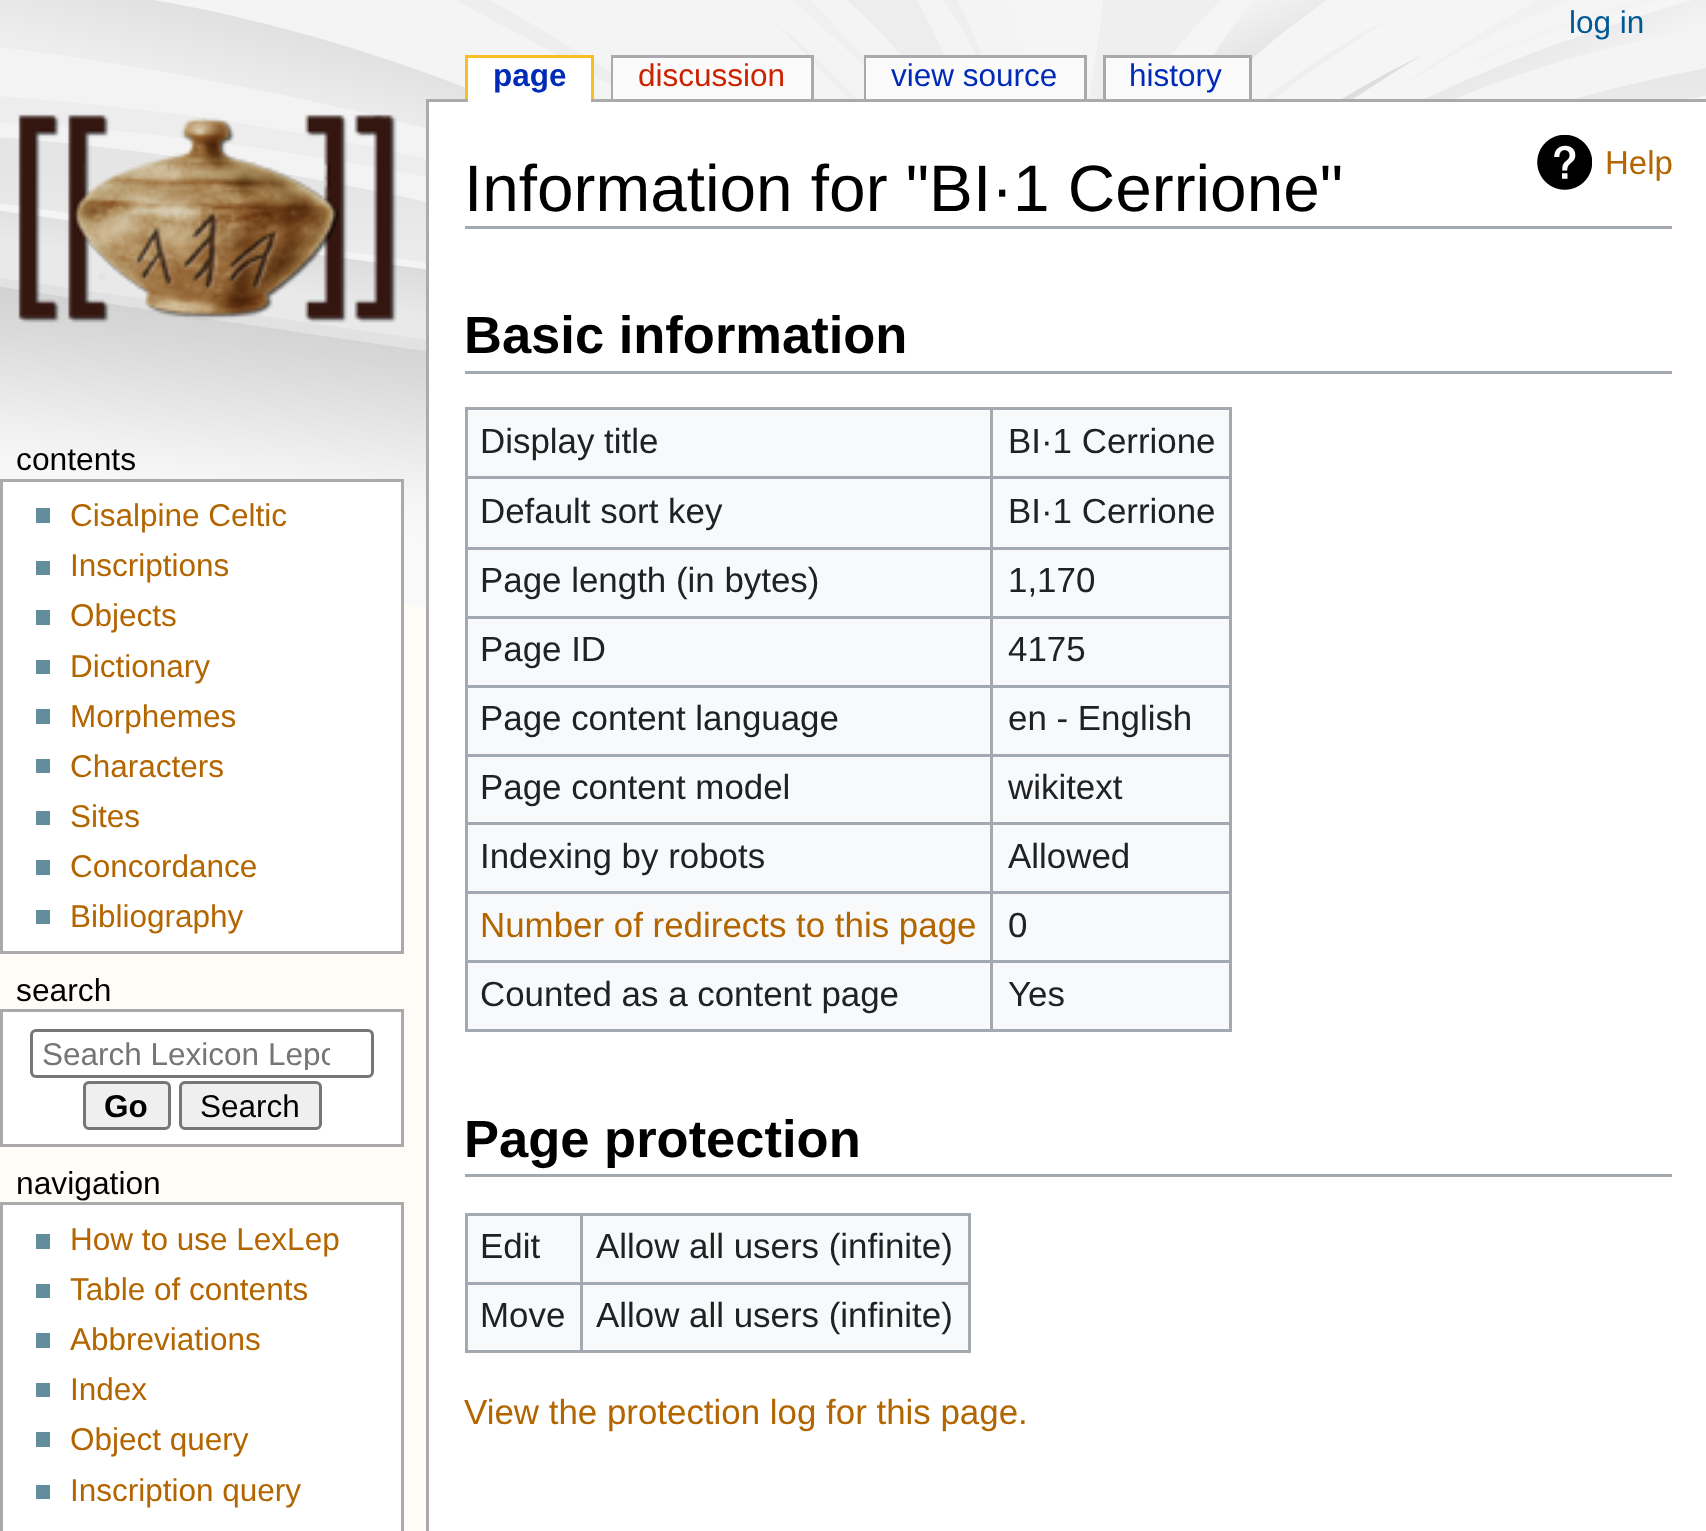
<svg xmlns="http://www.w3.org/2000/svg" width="1706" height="1531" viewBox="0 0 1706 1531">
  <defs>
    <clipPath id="clip1"><path d="M41 1037h289v33H41z"/></clipPath>
  </defs>
  <rect width="100%" height="100%" fill="#fffcf7"/>
  <image x="0" y="0" width="1706" height="605" href="img/1.png"/>
  <path d="M465 55h129v3H465z" fill="#fabd23"/>
  <path d="M591 55h3v44H591z" fill="#fabd23"/>
  <path d="M465 55h3v44H465z" fill="#fabd23"/>
  <path d="M426 99h1280v3H426z" fill="#aaa"/>
  <path d="M468 58h123v44H468z" fill="#fff"/>
  <path d="M611 55h203v3H611z" fill="#aaa"/>
  <path d="M811 55h3v44H811z" fill="#aaa"/>
  <path d="M611 55h3v44H611z" fill="#aaa"/>
  <path d="M613 58h198v41H613z" fill="#fbfbfb"/>
  <path d="M864 55h222v3H864z" fill="#aaa"/>
  <path d="M1084 55h3v44H1084z" fill="#aaa"/>
  <path d="M864 55h3v44H864z" fill="#aaa"/>
  <path d="M866 58h218v41H866z" fill="#fbfbfb"/>
  <path d="M1103 55h148v3H1103z" fill="#aaa"/>
  <path d="M1249 55h3v44H1249z" fill="#aaa"/>
  <path d="M1103 55h3v44H1103z" fill="#aaa"/>
  <path d="M1106 58h143v41H1106z" fill="#fbfbfb"/>
  <image x="18" y="114" width="379" height="209" href="img/2.png"/>
  <path d="M1.5 480.5h401v472H1.5z" fill="#fff" stroke="#aaa" stroke-width="3"/>
  <path d="M36 508h14v15H36z" fill="#638c9c"/>
  <path d="M36 561h14v14H36z" fill="#638c9c"/>
  <path d="M36 610h14v15H36z" fill="#638c9c"/>
  <path d="M36 660h14v14H36z" fill="#638c9c"/>
  <path d="M36 709h14v15H36z" fill="#638c9c"/>
  <path d="M36 759h14v14H36z" fill="#638c9c"/>
  <path d="M36 811h14v14H36z" fill="#638c9c"/>
  <path d="M36 860h14v15H36z" fill="#638c9c"/>
  <path d="M36 910h14v14H36z" fill="#638c9c"/>
  <path d="M1.5 1010.5h401v135H1.5z" fill="#fff" stroke="#aaa" stroke-width="3"/>
  <rect x="31.5" y="1030.5" width="341" height="46" rx="4.5" fill="none" stroke="#767676" stroke-width="3"/>
  <rect x="84.5" y="1082.5" width="85" height="46" rx="4.5" fill="#efefef" stroke="#767676" stroke-width="3"/>
  <rect x="180.5" y="1082.5" width="140" height="46" rx="4.5" fill="#efefef" stroke="#767676" stroke-width="3"/>
  <path d="M1.5 1203.5h401v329H1.5z" fill="#fff" stroke="#aaa" stroke-width="3"/>
  <path d="M36 1234h14v15H36z" fill="#638c9c"/>
  <path d="M36 1284h14v14H36z" fill="#638c9c"/>
  <path d="M36 1333h14v15H36z" fill="#638c9c"/>
  <path d="M36 1383h14v14H36z" fill="#638c9c"/>
  <path d="M36 1432h14v15H36z" fill="#638c9c"/>
  <path d="M36 1485h14v14H36z" fill="#638c9c"/>
  <path d="M429 102h1277v1429H429z" fill="#fff"/>
  <path d="M426 99h3v1432H426z" fill="#aaa"/>
  <path d="M465 226h1207v3H465z" fill="#a2a9b1"/>
  <image x="1537" y="135" width="55" height="55" href="img/3.png"/>
  <path d="M465 371h1207v3H465z" fill="#a2a9b1"/>
  <path d="M468 410h761v619H468z" fill="#f8f9fa"/>
  <path d="M465 407h767v3H465z" fill="#a2a9b1"/>
  <path d="M1229 407h3v624H1229z" fill="#a2a9b1"/>
  <path d="M465 1029h767v3H465z" fill="#a2a9b1"/>
  <path d="M465 407h3v624H465z" fill="#a2a9b1"/>
  <path d="M990 476h242v3H990z" fill="#a2a9b1"/>
  <path d="M990 547h242v3H990z" fill="#a2a9b1"/>
  <path d="M990 616h242v3H990z" fill="#a2a9b1"/>
  <path d="M990 685h242v3H990z" fill="#a2a9b1"/>
  <path d="M990 754h242v3H990z" fill="#a2a9b1"/>
  <path d="M990 822h242v3H990z" fill="#a2a9b1"/>
  <path d="M990 891h242v3H990z" fill="#a2a9b1"/>
  <path d="M990 960h242v3H990z" fill="#a2a9b1"/>
  <path d="M990 960h3v71H990z" fill="#a2a9b1"/>
  <path d="M465 960h528v3H465z" fill="#a2a9b1"/>
  <path d="M990 891h3v72H990z" fill="#a2a9b1"/>
  <path d="M465 891h528v3H465z" fill="#a2a9b1"/>
  <path d="M990 822h3v72H990z" fill="#a2a9b1"/>
  <path d="M465 822h528v3H465z" fill="#a2a9b1"/>
  <path d="M990 754h3v71H990z" fill="#a2a9b1"/>
  <path d="M465 754h528v3H465z" fill="#a2a9b1"/>
  <path d="M990 685h3v71H990z" fill="#a2a9b1"/>
  <path d="M465 685h528v3H465z" fill="#a2a9b1"/>
  <path d="M990 616h3v72H990z" fill="#a2a9b1"/>
  <path d="M465 616h528v3H465z" fill="#a2a9b1"/>
  <path d="M990 547h3v72H990z" fill="#a2a9b1"/>
  <path d="M465 547h528v3H465z" fill="#a2a9b1"/>
  <path d="M990 476h3v74H990z" fill="#a2a9b1"/>
  <path d="M465 476h528v3H465z" fill="#a2a9b1"/>
  <path d="M990 407h3v72H990z" fill="#a2a9b1"/>
  <path d="M465 1174h1207v3H465z" fill="#a2a9b1"/>
  <path d="M468 1216h500v134H468z" fill="#f8f9fa"/>
  <path d="M465 1213h506v3H465z" fill="#a2a9b1"/>
  <path d="M968 1213h3v140H968z" fill="#a2a9b1"/>
  <path d="M465 1350h506v3H465z" fill="#a2a9b1"/>
  <path d="M465 1213h3v140H465z" fill="#a2a9b1"/>
  <path d="M580 1282h391v3H580z" fill="#a2a9b1"/>
  <path d="M580 1282h3v71H580z" fill="#a2a9b1"/>
  <path d="M465 1282h118v3H465z" fill="#a2a9b1"/>
  <path d="M580 1213h3v71H580z" fill="#a2a9b1"/>
  <text x="1569" y="33" font-family="Liberation Sans" font-size="31.5" fill="#005896">log in</text>
  <text x="493" y="86" font-family="Liberation Sans" font-size="31.5" font-weight="bold" fill="#002bb8">page</text>
  <text x="638" y="86" font-family="Liberation Sans" font-size="31.5" fill="#c20">discussion</text>
  <g font-family="Liberation Sans" font-size="31.5" fill="#002bb8">
    <text x="891" y="86">view source</text>
    <text x="1129" y="86">history</text>
  </g>
  <text x="16" y="470" font-family="Liberation Sans" font-size="31.75" fill="#000">contents</text>
  <g font-family="Liberation Sans" font-size="31.5" fill="#b36500">
    <text x="70" y="526">Cisalpine Celtic</text>
    <text x="70" y="576">Inscriptions</text>
    <text x="70" y="626">Objects</text>
    <text x="70" y="677">Dictionary</text>
    <text x="70" y="727">Morphemes</text>
    <text x="70" y="777">Characters</text>
    <text x="70" y="827">Sites</text>
    <text x="70" y="877">Concordance</text>
    <text x="70" y="927">Bibliography</text>
  </g>
  <text x="16" y="1001" font-family="Liberation Sans" font-size="31.75" fill="#000">search</text>
  <g clip-path="url(#clip1)">
    <text x="42" y="1065" font-family="Liberation Sans" font-size="31.5" fill="#757575">Search Lexicon Lepo</text>
  </g>
  <text x="104" y="1117" font-family="Liberation Sans" font-size="31.5" font-weight="bold" fill="#000">Go</text>
  <text x="200" y="1117" font-family="Liberation Sans" font-size="31.5" fill="#000">Search</text>
  <text x="16" y="1194" font-family="Liberation Sans" font-size="31.75" fill="#000">navigation</text>
  <g font-family="Liberation Sans" font-size="31.5" fill="#b36500">
    <text x="70" y="1250">How to use LexLep</text>
    <text x="70" y="1300">Table of contents</text>
    <text x="70" y="1350">Abbreviations</text>
    <text x="70" y="1400">Index</text>
    <text x="70" y="1450">Object query</text>
    <text x="70" y="1501">Inscription query</text>
  </g>
  <text x="464" y="211" font-family="Liberation Sans" font-size="65.7" fill="#000">Information for "BI·1 Cerrione"</text>
  <text x="1605" y="174" font-family="Liberation Sans" font-size="33" fill="#b36500">Help</text>
  <text x="464" y="353" font-family="Liberation Sans" font-size="52.5" font-weight="bold" fill="#000">Basic information</text>
  <g font-family="Liberation Sans" font-size="34.9" fill="#202122">
    <text x="480" y="453">Display title</text>
    <text x="1008" y="453">BI·1 Cerrione</text>
    <text x="480" y="523">Default sort key</text>
    <text x="1008" y="523">BI·1 Cerrione</text>
    <text x="480" y="592">Page length (in bytes)</text>
    <text x="1008" y="592">1,170</text>
    <text x="480" y="661">Page ID</text>
    <text x="1008" y="661">4175</text>
    <text x="480" y="730">Page content language</text>
    <text x="1008" y="730">en - English</text>
    <text x="480" y="799">Page content model</text>
    <text x="1008" y="799">wikitext</text>
    <text x="480" y="868">Indexing by robots</text>
    <text x="1008" y="868">Allowed</text>
  </g>
  <text x="480" y="937" font-family="Liberation Sans" font-size="34.9" fill="#b36500">Number of redirects to this page</text>
  <g font-family="Liberation Sans" font-size="34.9" fill="#202122">
    <text x="1008" y="937">0</text>
    <text x="480" y="1006">Counted as a content page</text>
    <text x="1008" y="1006">Yes</text>
  </g>
  <text x="464" y="1157" font-family="Liberation Sans" font-size="52.5" font-weight="bold" fill="#000">Page protection</text>
  <g font-family="Liberation Sans" font-size="34.9" fill="#202122">
    <text x="480" y="1258">Edit</text>
    <text x="596" y="1258">Allow all users (infinite)</text>
    <text x="480" y="1327">Move</text>
    <text x="596" y="1327">Allow all users (infinite)</text>
  </g>
  <text x="464" y="1424" font-family="Liberation Sans" font-size="34.9" fill="#b36500">View the protection log for this page.</text>
</svg>
